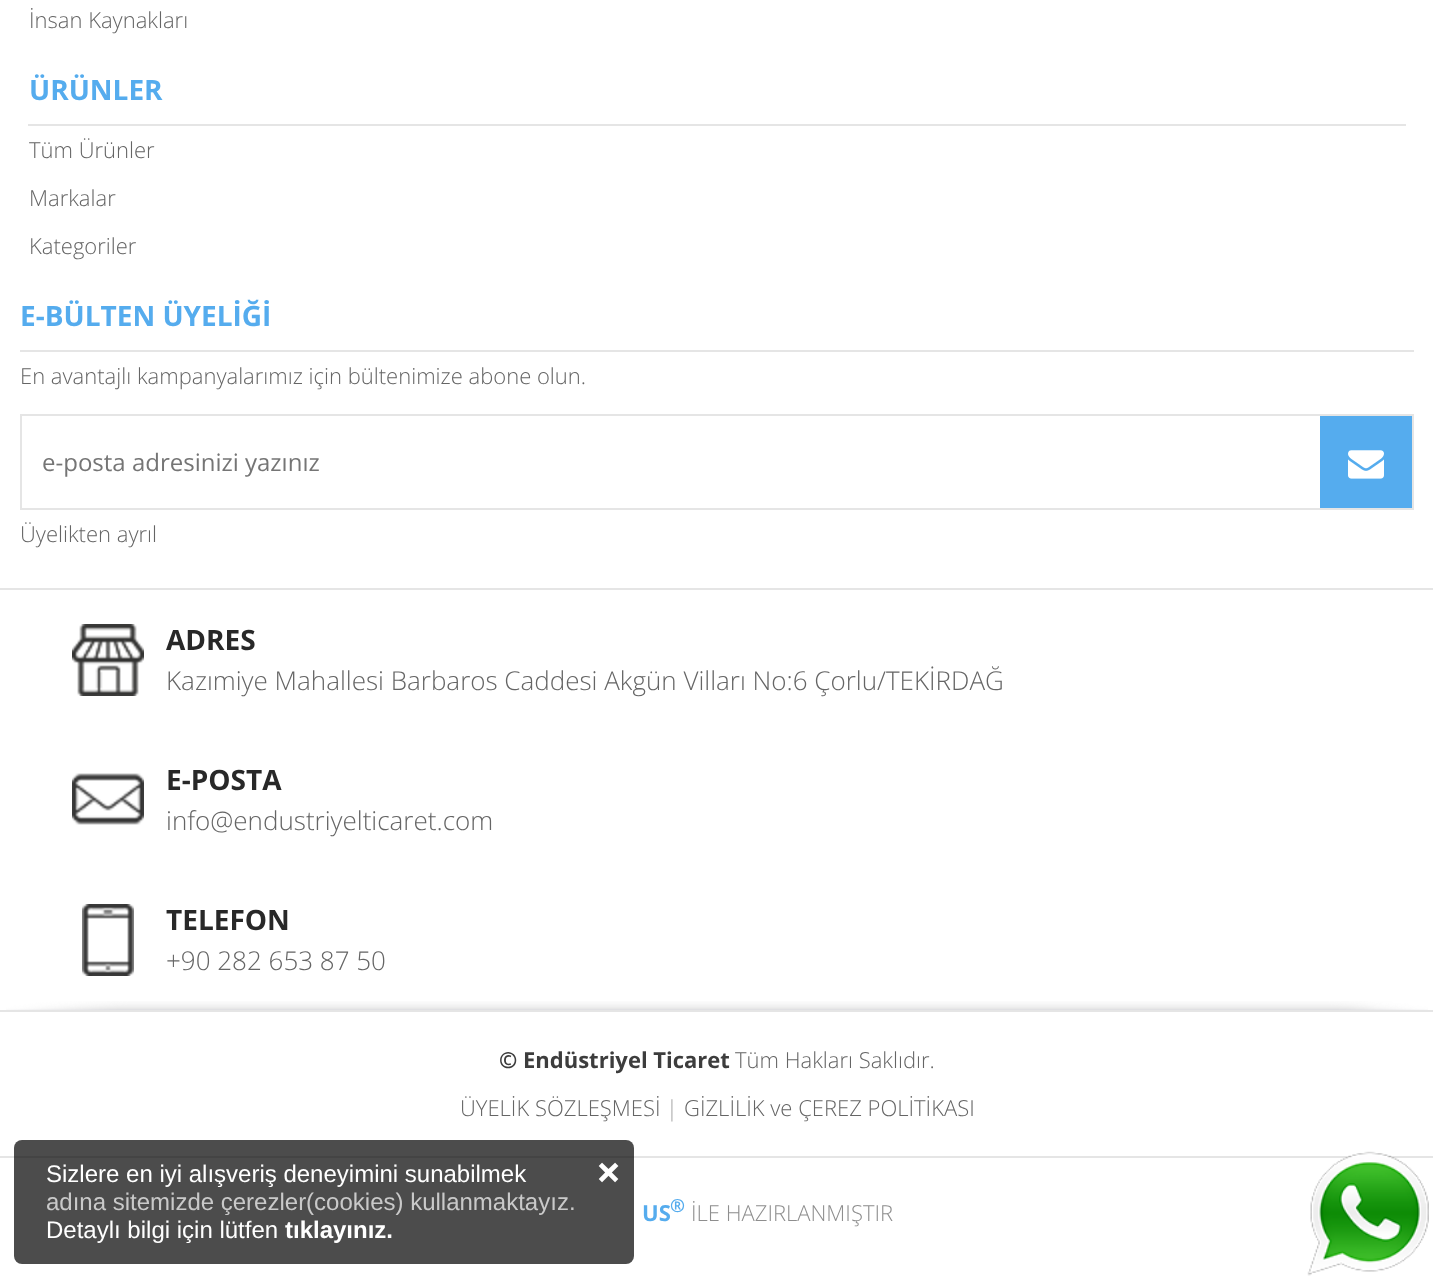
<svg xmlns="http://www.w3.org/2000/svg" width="1433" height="1278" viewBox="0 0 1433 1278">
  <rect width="100%" height="100%" fill="#fff"/>
  <path d="M28 124h1378v2H28z" fill="#e5e5e5"/>
  <path d="M20 350h1394v2H20z" fill="#e5e5e5"/>
  <path d="M21 415h1392v94H21z" fill="none" stroke="#e5e5e5" stroke-width="2"/>
  <path d="M1320 416h92v92H1320z" fill="#55acee"/>
  <image x="1348" y="450" width="36" height="29" href="img/1.png"/>
  <image x="6" y="1001" width="1422" height="9" href="img/2.png"/>
  <path d="M0 588h1433v2H0z" fill="#e5e5e5"/>
  <path d="M0 1010h1433v2H0z" fill="#e5e5e5"/>
  <image x="72" y="624" width="72" height="72" href="img/3.png"/>
  <image x="72" y="773" width="72" height="52" href="img/4.png"/>
  <image x="82" y="904" width="52" height="72" href="img/5.png"/>
  <path d="M0 1156h1433v2H0z" fill="#e5e5e5"/>
  <image x="1307" y="1151" width="122" height="125" href="img/6.png"/>
  <rect x="14" y="1140" width="620" height="124" rx="8" fill="#000000b3"/>
  <text x="29" y="28" font-family="Open Sans" font-size="22" font-weight="300" fill="#656565">İnsan Kaynakları</text>
  <text x="29" y="100" font-family="Open Sans" font-size="28" font-weight="bold" fill="#55acee">ÜRÜNLER</text>
  <g font-family="Open Sans" font-size="22" font-weight="300" fill="#656565">
    <text x="29" y="158">Tüm Ürünler</text>
    <text x="29" y="206">Markalar</text>
    <text x="29" y="254">Kategoriler</text>
  </g>
  <text x="20" y="326" font-family="Open Sans" font-size="28" font-weight="bold" fill="#55acee">E-BÜLTEN ÜYELİĞİ</text>
  <text x="20" y="384" font-family="Open Sans" font-size="22" font-weight="300" fill="#656565">En avantajlı kampanyalarımız için bültenimize abone olun.</text>
  <text x="42" y="471" font-family="Open Sans" font-size="24" fill="#757575">e-posta adresinizi yazınız</text>
  <text x="20" y="542" font-family="Open Sans" font-size="22" font-weight="300" fill="#656565">Üyelikten ayrıl</text>
  <text x="166" y="650" font-family="Open Sans" font-size="28" font-weight="bold" fill="#282828">ADRES</text>
  <text x="166" y="690" font-family="Open Sans" font-size="26" font-weight="300" fill="#656565">Kazımiye Mahallesi Barbaros Caddesi Akgün Vilları No:6 Çorlu/TEKİRDAĞ</text>
  <text x="166" y="790" font-family="Open Sans" font-size="28" font-weight="bold" fill="#282828">E-POSTA</text>
  <text x="166" y="830" font-family="Open Sans" font-size="26" font-weight="300" fill="#656565">info@endustriyelticaret.com</text>
  <text x="166" y="930" font-family="Open Sans" font-size="28" font-weight="bold" fill="#282828">TELEFON</text>
  <text x="166" y="970" font-family="Open Sans" font-size="26" font-weight="300" fill="#656565">+90 282 653 87 50</text>
  <text x="499" y="1068" font-family="Open Sans" font-size="22" font-weight="bold" fill="#3d3d3d">© Endüstriyel Ticaret</text>
  <g font-family="Open Sans" font-size="22" font-weight="300" fill="#656565">
    <text x="735" y="1068">Tüm Hakları Saklıdır.</text>
    <text x="460" y="1116">ÜYELİK SÖZLEŞMESİ</text>
  </g>
  <text x="666" y="1116" font-family="Open Sans" font-size="22" font-weight="300" fill="#a3a3a3">|</text>
  <text x="684" y="1116" font-family="Open Sans" font-size="22" font-weight="300" fill="#656565">GİZLİLİK ve ÇEREZ POLİTİKASI</text>
  <text x="642" y="1221" font-family="Open Sans" font-size="22" font-weight="bold" fill="#55acee">US</text>
  <text x="670" y="1212" font-family="Open Sans" font-size="18" font-weight="bold" fill="#55acee">®</text>
  <text x="691" y="1221" font-family="Open Sans" font-size="22" font-weight="300" fill="#8e8e8e">İLE HAZIRLANMIŞTIR</text>
  <text x="46" y="1182" font-family="Liberation Sans" font-size="24" fill="#fff">Sizlere en iyi alışveriş deneyimini sunabilmek</text>
  <text x="46" y="1210" font-family="Liberation Sans" font-size="24" fill="#c9c9c9">adına sitemizde çerezler(cookies) kullanmaktayız.</text>
  <text x="46" y="1238" font-family="Liberation Sans" font-size="24" fill="#fff">Detaylı bilgi için lütfen</text>
  <text x="285" y="1238" font-family="Liberation Sans" font-size="24" font-weight="bold" fill="#fff">tıklayınız.</text>
  <text x="596" y="1188" font-family="Open Sans" font-size="44" font-weight="bold" fill="#fff">×</text>
</svg>
